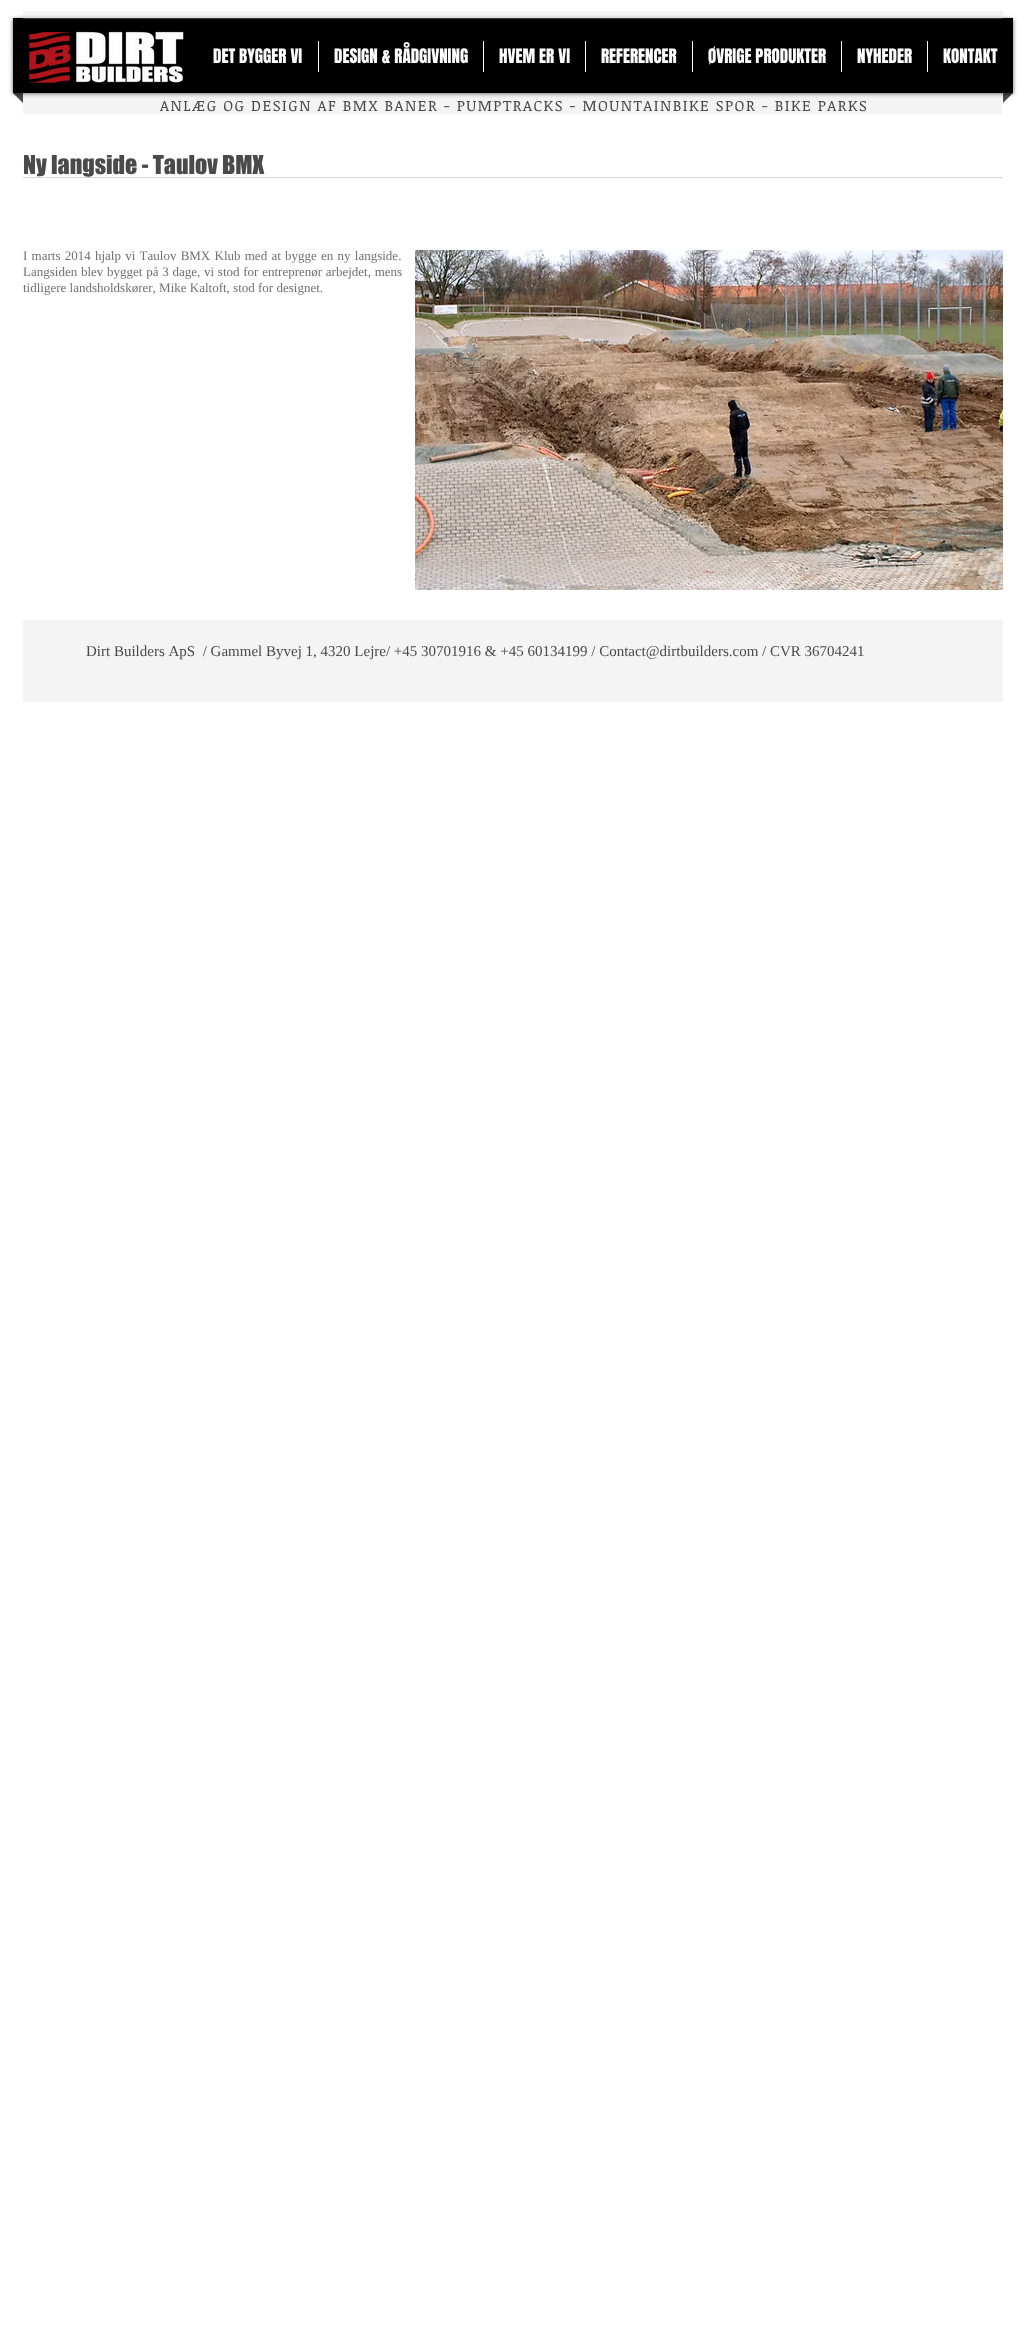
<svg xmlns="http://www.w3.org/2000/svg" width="1025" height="2336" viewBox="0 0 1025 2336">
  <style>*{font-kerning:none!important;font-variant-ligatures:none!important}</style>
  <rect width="100%" height="100%" fill="#fff"/>
  <path d="M13 93H23V103Z" fill="#4a4a4a"/>
  <path d="M1003 93H1013L1003 103Z" fill="#4a4a4a"/>
  <path d="M13 19h1000v75H13z" fill="#00000099" filter="blur(2px)"/>
  <path d="M13 18h1000v75H13z" fill="#000"/>
  <path d="M23 11h980v8H23z" fill="#d6d6d645"/>
  <image x="29" y="31" width="155" height="52" href="img/1.png"/>
  <path d="M318 41h1v31H318z" fill="#fff"/>
  <path d="M483 41h1v31H483z" fill="#fff"/>
  <path d="M585 41h1v31H585z" fill="#fff"/>
  <path d="M692 41h1v31H692z" fill="#fff"/>
  <path d="M841 41h1v31H841z" fill="#fff"/>
  <path d="M927 41h1v31H927z" fill="#fff"/>
  <path d="M23 94h979v20H23z" fill="#d6d6d645"/>
  <path d="M23 177h980v1H23z" fill="#d6d6d6"/>
  <image x="415" y="250" width="588" height="340" href="img/2.png"/>
  <path d="M23 620h980v82H23z" fill="#f4f4f4"/>
  <g font-family="Anton" font-size="17" fill="#fff">
    <text x="213" y="63">DET BYGGER VI</text>
    <text x="334" y="63">DESIGN &amp; RÅDGIVNING</text>
    <text x="499" y="63">HVEM ER VI</text>
    <text x="601" y="63">REFERENCER</text>
    <text x="708" y="63">ØVRIGE PRODUKTER</text>
    <text x="857" y="63">NYHEDER</text>
    <text x="943" y="63">KONTAKT</text>
  </g>
  <text x="160" y="111" font-family="Noticia Text" font-size="15" letter-spacing="1.5" fill="#4a4a4a">ANLÆG OG DESIGN AF BMX BANER - PUMPTRACKS - MOUNTAINBIKE SPOR - BIKE PARKS</text>
  <text x="23" y="174" font-family="'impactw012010'" font-size="24" fill="#4a4a4a">Ny langside - Taulov BMX</text>
  <g font-family="Liberation Serif" font-size="13" fill="#717070">
    <text x="23" y="260" word-spacing="1">I marts 2014 hjalp vi Taulov BMX Klub med at bygge en ny langside.</text>
    <text x="23" y="276" word-spacing="0.5">Langsiden blev bygget på 3 dage, vi stod for entreprenør arbejdet, mens</text>
    <text x="23" y="292">tidligere landsholdskører, Mike Kaltoft, stod for designet.</text>
  </g>
  <text x="86" y="656" font-family="Liberation Serif" font-size="15" fill="#4a4a4a" xml:space="preserve">Dirt Builders ApS  / Gammel Byvej 1, 4320 Lejre/ +45 30701916 &amp; +45 60134199 / Contact@dirtbuilders.com / CVR 36704241</text>
</svg>
